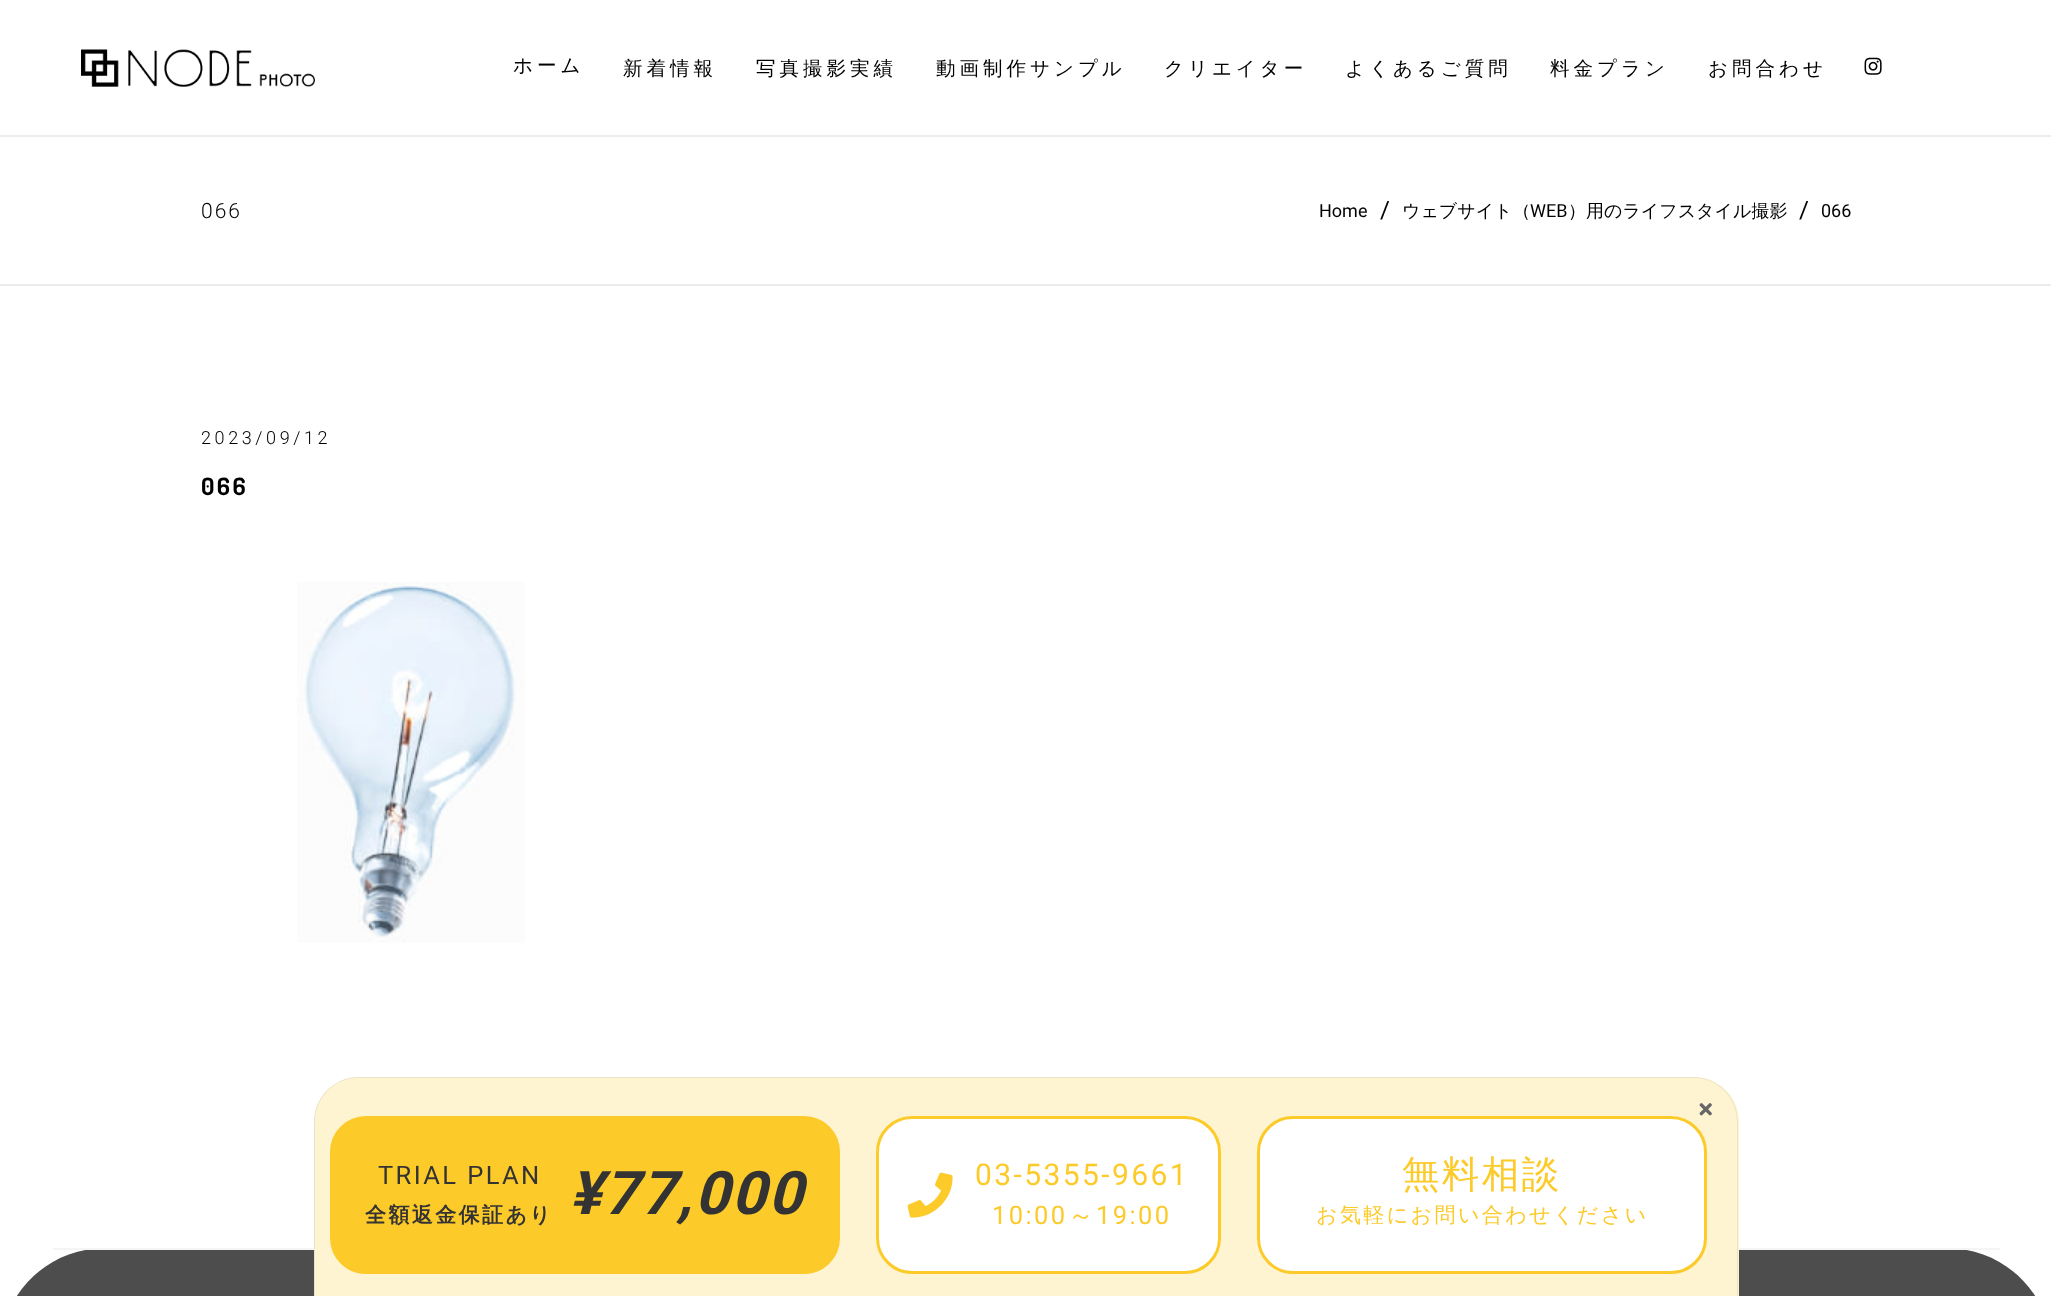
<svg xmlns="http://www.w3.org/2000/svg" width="2051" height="1296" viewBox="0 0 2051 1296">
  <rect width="100%" height="100%" fill="#fff"/>
  <image x="81" y="49" width="234" height="38" href="img/1.png"/>
  <image x="1864" y="57" width="18" height="18" href="img/2.png"/>
  <path d="M0 135h2051v2H0z" fill="#ececec"/>
  <path d="M0 284h2051v2H0z" fill="#ececec"/>
  <image x="297" y="582" width="228" height="361" href="img/3.png"/>
  <path d="M105 1248H1947C2005 1248 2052 1295 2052 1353V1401H0V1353C0 1295 47 1248 105 1248Z" fill="#4d4d4d"/>
  <path d="M53 1248h1947v2H53z" fill="#f5f5f5"/>
  <path d="M359 1077H1694C1719 1077 1739 1097 1739 1122V1296H314V1122C314 1097 334 1077 359 1077Z" fill="#fff4d1"/>
  <path d="M358 1077H1694C1718 1077 1738 1097 1738 1122V1296H314V1122C314 1097 334 1077 358 1077ZM358 1078H1694C1718 1078 1737 1098 1737 1122V1296H315V1122C315 1098 334 1078 358 1078Z" fill="#00000012" fill-rule="evenodd"/>
  <image x="1699" y="1103" width="13" height="13" href="img/4.png"/>
  <rect x="331" y="1117" width="508" height="156" rx="35" fill="#fcca29" stroke="#fcca29" stroke-width="2"/>
  <rect x="877.5" y="1117.5" width="342" height="155" rx="34.5" fill="#fff" stroke="#fcca29" stroke-width="3"/>
  <image x="907" y="1172" width="46" height="46" href="img/5.png"/>
  <rect x="1258.5" y="1117.5" width="447" height="155" rx="34.5" fill="#fff" stroke="#fcca29" stroke-width="3"/>
  <g font-family="WenQuanYi Zen Hei" font-size="19.5" font-weight="500" letter-spacing="4" fill="#000">
    <text x="513" y="72">ホーム</text>
    <text x="623" y="75">新着情報</text>
    <text x="756" y="75">写真撮影実績</text>
    <text x="936" y="75">動画制作サンプル</text>
    <text x="1164" y="75">クリエイター</text>
    <text x="1345" y="75">よくあるご質問</text>
    <text x="1550" y="75">料金プラン</text>
    <text x="1708" y="75">お問合わせ</text>
  </g>
  <text x="201" y="218" font-family="Roboto" font-size="21" font-weight="300" letter-spacing="2" fill="#000">066</text>
  <text x="1319" y="217" font-family="Roboto" font-size="18" fill="#000">Home</text>
  <text x="1380" y="218" font-family="Roboto" font-size="24" fill="#000">/</text>
  <text x="1402" y="217" font-family="WenQuanYi Zen Hei" font-size="18" font-weight="500" fill="#000">ウェブサイト（</text>
  <text x="1530" y="217" font-family="Roboto" font-size="18" fill="#000">WEB</text>
  <text x="1568" y="217" font-family="WenQuanYi Zen Hei" font-size="18" font-weight="500" fill="#000">）用のライフスタイル撮影</text>
  <text x="1799" y="218" font-family="Roboto" font-size="24" fill="#000">/</text>
  <text x="1821" y="217" font-family="Roboto" font-size="18" fill="#000">066</text>
  <text x="201" y="444" font-family="Roboto" font-size="18" font-weight="300" letter-spacing="3.6" fill="#000">2023/09/12</text>
  <text x="201" y="495" font-family="Dosis" font-size="24" font-weight="bold" letter-spacing="2.4" fill="#000">066</text>
  <text x="378" y="1184" font-family="Roboto" font-size="25.5" letter-spacing="2.4" fill="#333">TRIAL PLAN</text>
  <text x="365" y="1222" font-family="WenQuanYi Zen Hei" font-size="21" font-weight="bold" letter-spacing="2.4" fill="#333">全額返金保証あり</text>
  <text x="569" y="1214" font-family="Roboto" font-size="60" font-weight="bold" font-style="italic" letter-spacing="2.4" fill="#333">¥77,000</text>
  <text x="975" y="1185" font-family="Roboto" font-size="30" letter-spacing="2.4" fill="#fcca29">03-5355-9661</text>
  <text x="992" y="1224" font-family="Roboto" font-size="25.5" letter-spacing="2.4" fill="#fcca29">10:00</text>
  <text x="1068" y="1224" font-family="WenQuanYi Zen Hei" font-size="25.5" font-weight="500" letter-spacing="2.4" fill="#fcca29">～</text>
  <text x="1096" y="1224" font-family="Roboto" font-size="25.5" letter-spacing="2.4" fill="#fcca29">19:00</text>
  <text x="1402" y="1187" font-family="WenQuanYi Zen Hei" font-size="37.5" font-weight="500" letter-spacing="2.4" fill="#fcca29">無料相談</text>
  <text x="1316" y="1222" font-family="WenQuanYi Zen Hei" font-size="21" font-weight="500" letter-spacing="2.4" fill="#fcca29">お気軽にお問い合わせください</text>
</svg>
